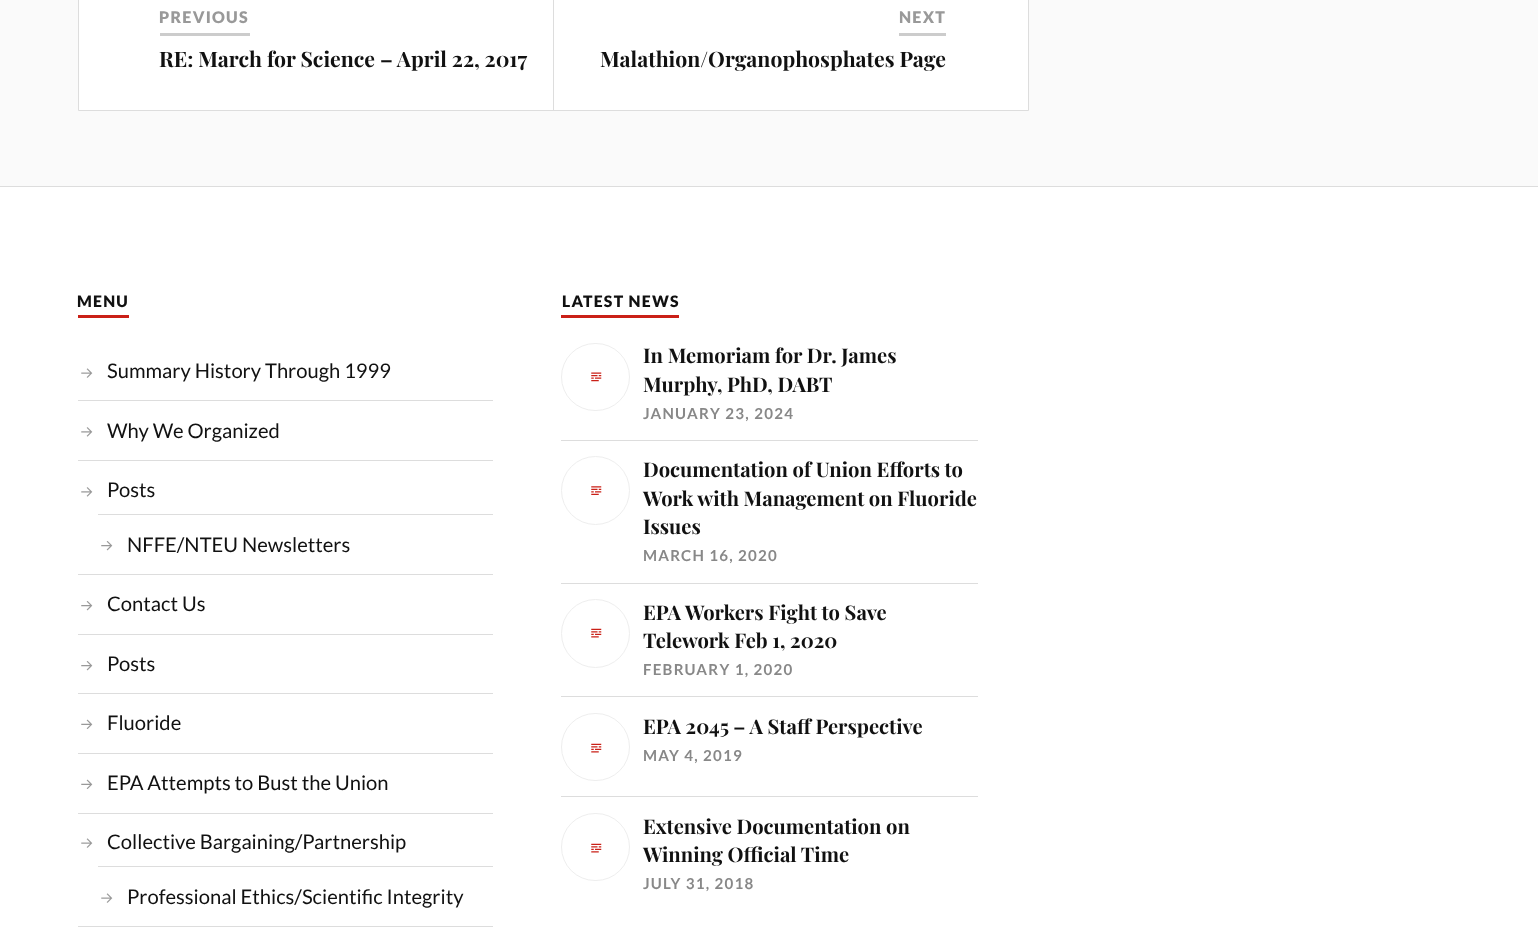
<svg xmlns="http://www.w3.org/2000/svg" width="1538" height="938" viewBox="0 0 1538 938">
  <rect width="100%" height="100%" fill="#fafafa"/>
  <path d="M78.5 -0.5h950v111H78.5z" fill="#fff" stroke="#ddd"/>
  <path d="M553 0h1v110H553z" fill="#ddd"/>
  <path d="M160 33h90v3H160z" fill="#ccc"/>
  <path d="M899 33h47v3H899z" fill="#ccc"/>
  <path d="M0 187h1538v751H0z" fill="#fff"/>
  <path d="M0 186h1538v1H0z" fill="#ddd"/>
  <path d="M78 315h51v3H78z" fill="#ca2017"/>
  <path d="M78 400h415v1H78z" fill="#ddd"/>
  <image x="81" y="368" width="12" height="10" href="img/1.png"/>
  <path d="M78 460h415v1H78z" fill="#ddd"/>
  <image x="81" y="427" width="12" height="10" href="img/2.png"/>
  <path d="M78 574h415v1H78z" fill="#ddd"/>
  <image x="81" y="487" width="12" height="10" href="img/2.png"/>
  <path d="M98 514h395v1H98z" fill="#ddd"/>
  <image x="101" y="541" width="12" height="10" href="img/3.png"/>
  <path d="M78 634h415v1H78z" fill="#ddd"/>
  <image x="81" y="601" width="12" height="10" href="img/3.png"/>
  <path d="M78 693h415v1H78z" fill="#ddd"/>
  <image x="81" y="661" width="12" height="10" href="img/3.png"/>
  <path d="M78 753h415v1H78z" fill="#ddd"/>
  <image x="81" y="719" width="12" height="10" href="img/4.png"/>
  <path d="M78 813h415v1H78z" fill="#ddd"/>
  <image x="81" y="779" width="12" height="10" href="img/4.png"/>
  <path d="M78 926h415v1H78z" fill="#ddd"/>
  <image x="81" y="838" width="12" height="10" href="img/1.png"/>
  <path d="M98 866h395v1H98z" fill="#ddd"/>
  <image x="101" y="893" width="12" height="10" href="img/1.png"/>
  <path d="M561 315h118v3H561z" fill="#ca2017"/>
  <path d="M561 440h417v1H561z" fill="#ddd"/>
  <rect x="561.5" y="343.5" width="68" height="67" rx="33.5" fill="none" stroke="#eee"/>
  <image x="591" y="372" width="11" height="10" href="img/5.png"/>
  <path d="M561 583h417v1H561z" fill="#ddd"/>
  <circle cx="595.5" cy="490.5" r="34" fill="none" stroke="#eee"/>
  <image x="591" y="486" width="11" height="9" href="img/6.png"/>
  <path d="M561 696h417v1H561z" fill="#ddd"/>
  <circle cx="595.5" cy="633.5" r="34" fill="none" stroke="#eee"/>
  <image x="591" y="628" width="11" height="10" href="img/7.png"/>
  <path d="M561 796h417v1H561z" fill="#ddd"/>
  <rect x="561.5" y="713.5" width="68" height="67" rx="33.5" fill="none" stroke="#eee"/>
  <image x="591" y="743" width="11" height="10" href="img/7.png"/>
  <rect x="561.5" y="813.5" width="68" height="67" rx="33.5" fill="none" stroke="#eee"/>
  <image x="591" y="843" width="11" height="10" href="img/7.png"/>
  <text x="159" y="23" font-family="Lato" font-size="16" font-weight="900" letter-spacing="1.25" fill="#999">PREVIOUS</text>
  <text x="159" y="67" font-family="Playfair Display" font-size="21.25" font-weight="bold" fill="#111">RE: March for Science – April 22, 2017</text>
  <text x="899" y="23" font-family="Lato" font-size="16" font-weight="900" letter-spacing="1.25" fill="#999">NEXT</text>
  <text x="600" y="67" font-family="Playfair Display" font-size="21.25" font-weight="bold" fill="#111">Malathion/Organophosphates Page</text>
  <text x="77" y="307" font-family="Lato" font-size="15.75" font-weight="900" letter-spacing="1.25" fill="#111">MENU</text>
  <g font-family="Lato" font-size="20.2" fill="#111">
    <text x="107" y="378">Summary History Through 1999</text>
    <text x="107" y="438">Why We Organized</text>
    <text x="107" y="497">Posts</text>
    <text x="127" y="552">NFFE/NTEU Newsletters</text>
    <text x="107" y="611">Contact Us</text>
    <text x="107" y="671">Posts</text>
    <text x="107" y="730">Fluoride</text>
    <text x="107" y="790">EPA Attempts to Bust the Union</text>
    <text x="107" y="849">Collective Bargaining/Partnership</text>
    <text x="127" y="904">Professional Ethics/Scientific Integrity</text>
  </g>
  <text x="562" y="307" font-family="Lato" font-size="15.75" font-weight="900" letter-spacing="1.25" fill="#111">LATEST NEWS</text>
  <g font-family="Playfair Display" font-size="20.2" font-weight="bold" fill="#111">
    <text x="643" y="363">In Memoriam for Dr. James</text>
    <text x="643" y="392">Murphy, PhD, DABT</text>
  </g>
  <text x="643" y="419" font-family="Lato" font-size="15.1" font-weight="bold" letter-spacing="1.25" fill="#888">JANUARY 23, 2024</text>
  <g font-family="Playfair Display" font-size="20.2" font-weight="bold" fill="#111">
    <text x="643" y="477">Documentation of Union Efforts to</text>
    <text x="643" y="506">Work with Management on Fluoride</text>
    <text x="643" y="534">Issues</text>
  </g>
  <text x="643" y="561" font-family="Lato" font-size="15.1" font-weight="bold" letter-spacing="1.25" fill="#888">MARCH 16, 2020</text>
  <g font-family="Playfair Display" font-size="20.2" font-weight="bold" fill="#111">
    <text x="643" y="620">EPA Workers Fight to Save</text>
    <text x="643" y="648">Telework Feb 1, 2020</text>
  </g>
  <text x="643" y="675" font-family="Lato" font-size="15.1" font-weight="bold" letter-spacing="1.25" fill="#888">FEBRUARY 1, 2020</text>
  <text x="643" y="734" font-family="Playfair Display" font-size="20.2" font-weight="bold" fill="#111">EPA 2045 – A Staff Perspective</text>
  <text x="643" y="761" font-family="Lato" font-size="15.1" font-weight="bold" letter-spacing="1.25" fill="#888">MAY 4, 2019</text>
  <g font-family="Playfair Display" font-size="20.2" font-weight="bold" fill="#111">
    <text x="643" y="834">Extensive Documentation on</text>
    <text x="643" y="862">Winning Official Time</text>
  </g>
  <text x="643" y="889" font-family="Lato" font-size="15.1" font-weight="bold" letter-spacing="1.25" fill="#888">JULY 31, 2018</text>
</svg>
